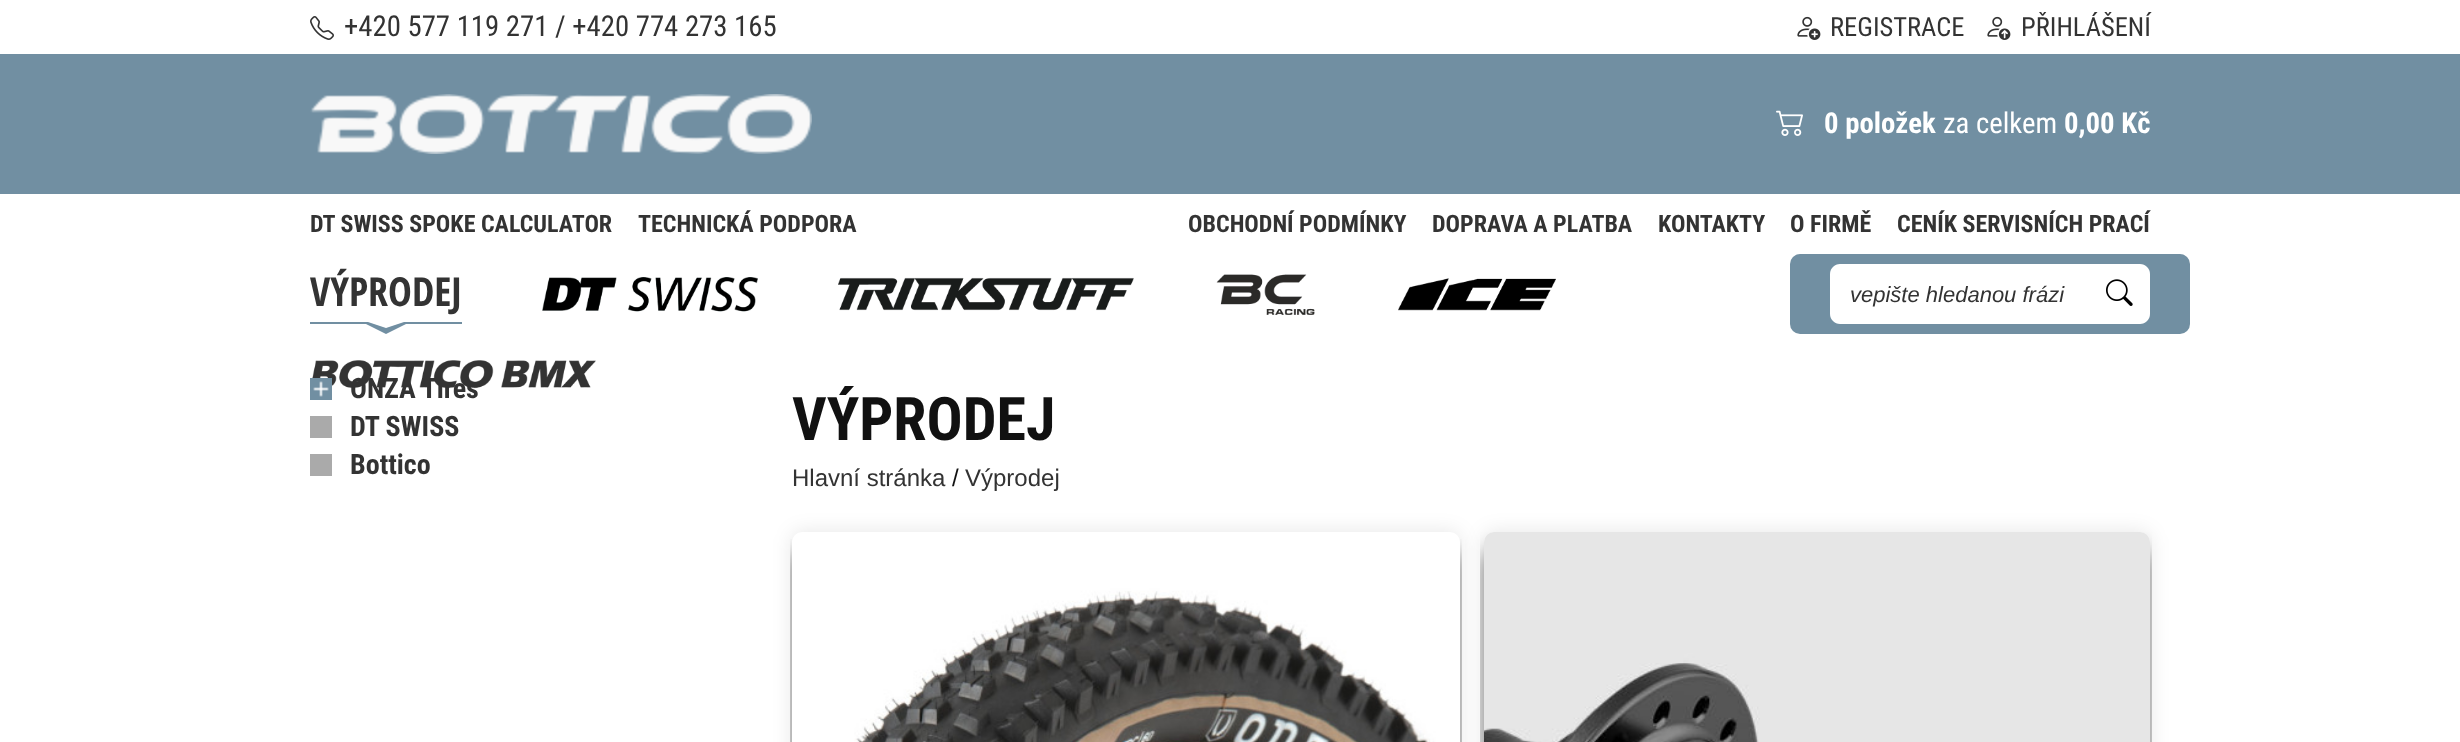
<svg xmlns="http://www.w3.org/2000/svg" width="2460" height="742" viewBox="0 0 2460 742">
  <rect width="100%" height="100%" fill="#fff"/>
  <image x="310" y="16" width="24" height="24" href="img/1.png"/>
  <image x="1797" y="16" width="24" height="24" href="img/2.png"/>
  <image x="1987" y="16" width="24" height="24" href="img/3.png"/>
  <path d="M0 54h2460v140H0z" fill="#718fa2"/>
  <image x="310" y="94" width="502" height="60" href="img/4.png"/>
  <image x="1776" y="110" width="27" height="26" href="img/5.png"/>
  <path d="M310 322V324H366L386 334L406 324H462V322H404L386 328L368 322Z" fill="#718fa2"/>
  <image x="542" y="277" width="216" height="35" href="img/6.png"/>
  <image x="838" y="277" width="296" height="34" href="img/7.png"/>
  <image x="1216" y="274" width="99" height="41" href="img/8.png"/>
  <image x="1398" y="278" width="158" height="33" href="img/9.png"/>
  <rect x="1790" y="254" width="400" height="80" rx="10" fill="#718fa2"/>
  <path d="M1840 264H2090V324H1840C1834.5 324 1830 319.5 1830 314V274C1830 268.5 1834.5 264 1840 264Z" fill="#fff"/>
  <path d="M2090 264H2140C2145.5 264 2150 268.5 2150 274V314C2150 319.5 2145.5 324 2140 324H2090Z" fill="#fff"/>
  <image x="2106" y="279" width="27" height="27" href="img/11.png"/>
  <path d="M310 416h22v22H310z" fill="#aaa"/>
  <path d="M310 454h22v22H310z" fill="#aaa"/>
  <rect x="792" y="532" width="668" height="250" rx="10" fill="#0000001a" filter="blur(10px)"/>
  <rect x="792" y="532" width="668" height="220" rx="10" fill="#fff"/>
  <image x="790" y="539" width="672" height="203" href="img/13.png"/>
  <rect x="1484" y="532" width="666" height="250" rx="10" fill="#0000001a" filter="blur(10px)"/>
  <rect x="1484" y="532" width="666" height="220" rx="10" fill="#fff"/>
  <image x="1480" y="532" width="672" height="210" href="img/14.png"/>
  <text x="344" y="36" font-family="Roboto Condensed" font-size="28.75" fill="#333">+420 577 119 271 / +420 774 273 165</text>
  <g font-family="Roboto Condensed" font-size="26.5" fill="#333">
    <text x="1830" y="36">REGISTRACE</text>
    <text x="2021" y="36">PŘIHLÁŠENÍ</text>
  </g>
  <text x="1824" y="133" font-family="Roboto Condensed" font-size="28.75" font-weight="bold" fill="#fff">0 položek</text>
  <text x="1943" y="133" font-family="Roboto Condensed" font-size="28.75" fill="#fff">za celkem</text>
  <text x="2064" y="133" font-family="Roboto Condensed" font-size="28.75" font-weight="bold" fill="#fff">0,00 Kč</text>
  <g font-family="Roboto Condensed" font-size="24" font-weight="bold" fill="#333">
    <text x="310" y="232">DT SWISS SPOKE CALCULATOR</text>
    <text x="638" y="232">TECHNICKÁ PODPORA</text>
    <text x="1188" y="232">OBCHODNÍ PODMÍNKY</text>
    <text x="1432" y="232">DOPRAVA A PLATBA</text>
    <text x="1658" y="232">KONTAKTY</text>
    <text x="1790" y="232">O FIRMĚ</text>
    <text x="1897" y="232">CENÍK SERVISNÍCH PRACÍ</text>
  </g>
  <text x="310" y="306" font-family="Open Sans Condensed" font-size="40" font-weight="bold" fill="#333">VÝPRODEJ</text>
  <text x="1850" y="302" font-family="Liberation Sans" font-size="22" font-style="italic" fill="#333">vepište hledanou frázi</text>
  <text x="350" y="398" font-family="Roboto Condensed" font-size="28" font-weight="bold" fill="#333">ONZA Tires</text>
  <image x="312" y="360" width="284" height="29" href="img/10.png"/>
  <path d="M310 378h22v22H310z" fill="#718fa2"/>
  <image x="313" y="381" width="16" height="16" href="img/12.png"/>
  <g font-family="Roboto Condensed" font-size="28" font-weight="bold" fill="#333">
    <text x="350" y="436">DT SWISS</text>
    <text x="350" y="474">Bottico</text>
  </g>
  <text x="792" y="440" font-family="Roboto Condensed" font-size="60" font-weight="bold" fill="#111">VÝPRODEJ</text>
  <text x="792" y="486" font-family="Liberation Sans" font-size="24" fill="#333">Hlavní stránka</text>
  <text x="952" y="486" font-family="Liberation Sans" font-size="24" fill="#111">/</text>
  <text x="965" y="486" font-family="Liberation Sans" font-size="24" fill="#333">Výprodej</text>
</svg>
